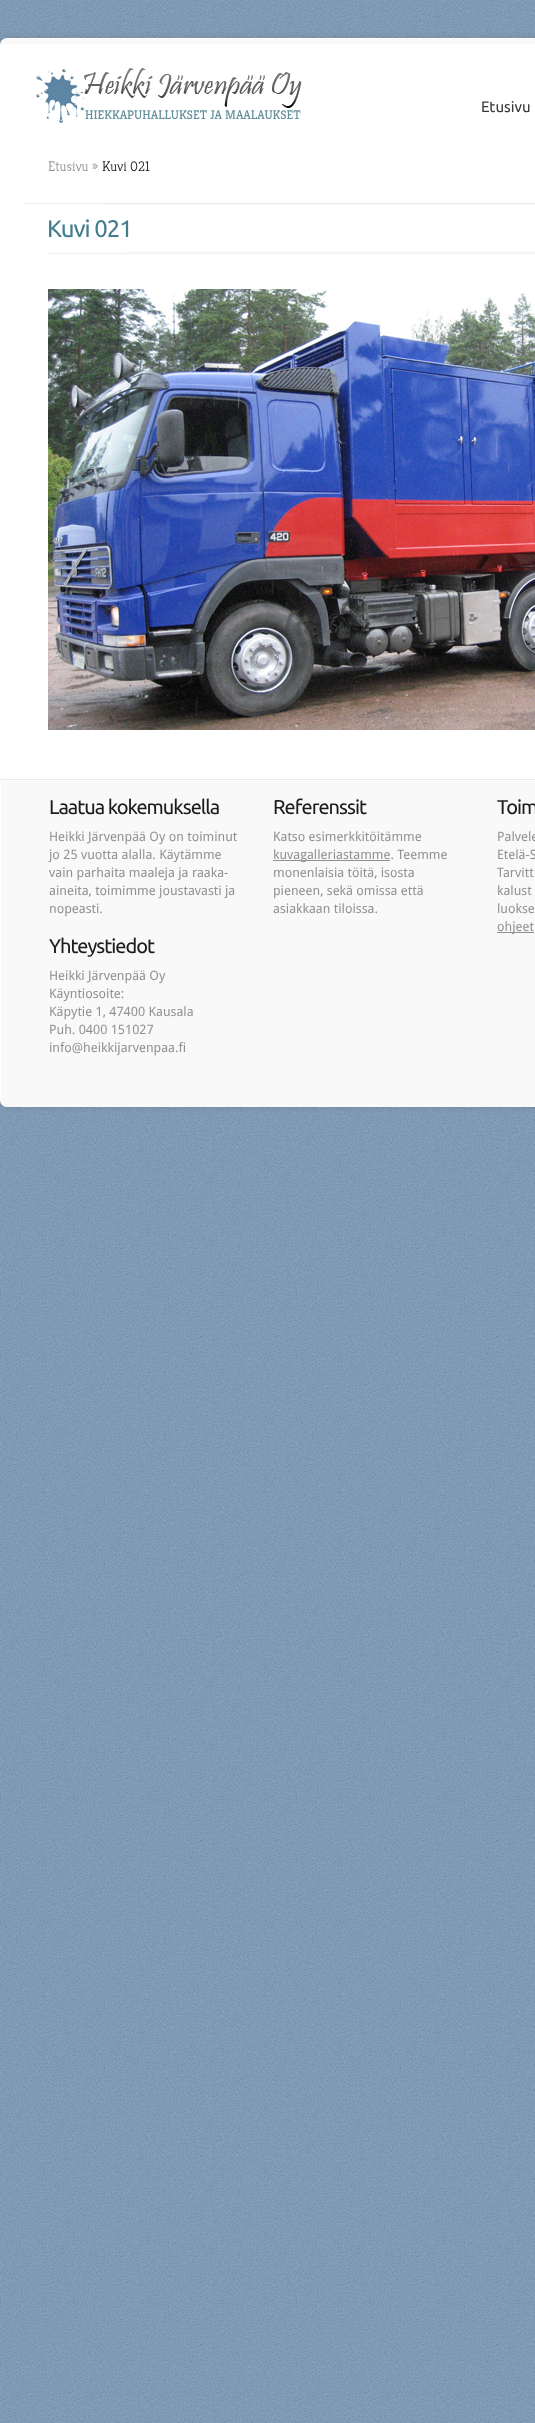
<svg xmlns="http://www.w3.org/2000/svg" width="535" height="2423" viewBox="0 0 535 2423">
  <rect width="100%" height="100%" fill="#7c99b3"/>
  <image x="0" y="0" width="535" height="2423" href="img/1.png"/>
  <rect y="38" width="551" height="1069" rx="7" fill="#0000001a" filter="blur(3px)"/>
  <rect y="38" width="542" height="1069" rx="7" fill="#fff"/>
  <image x="1" y="39" width="534" height="5" href="img/2.png"/>
  <image x="36" y="68" width="266" height="55" href="img/3.png"/>
  <image x="24" y="203" width="511" height="2" href="img/4.png"/>
  <image x="48" y="251" width="487" height="3" href="img/5.png"/>
  <image x="48" y="289" width="487" height="441" href="img/6.png"/>
  <path d="M0 779h535v1H0z" fill="#ececec"/>
  <path d="M1 781H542V1100C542 1104 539 1107 535 1107H8C4 1107 1 1104 1 1100Z" fill="#f9f9f9"/>
  <path d="M273 860h117v1H273z" fill="#929292"/>
  <path d="M497 932h37v1H497z" fill="#929292"/>
  <text x="481" y="112" font-family="Ubuntu" font-size="15" fill="#393939">Etusivu</text>
  <text x="85" y="119" font-family="Kreon" font-size="12.5" fill="#66929c">HIEKKAPUHALLUKSET JA MAALAUKSET</text>
  <text x="48" y="171" font-family="Kreon" font-size="14" font-weight="300" fill="#929292">Etusivu »</text>
  <text x="102" y="171" font-family="Kreon" font-size="14" font-weight="300" fill="#1d1d1d">Kuvi 021</text>
  <text x="47" y="237" font-family="Ubuntu" font-size="24" letter-spacing="-1" fill="#427d8b">Kuvi 021</text>
  <text x="49" y="814" font-family="Ubuntu" font-size="20" letter-spacing="-1" fill="#1d1d1d">Laatua kokemuksella</text>
  <g font-family="Droid Sans" font-size="13" fill="#929292">
    <text x="49" y="841">Heikki Järvenpää Oy on toiminut</text>
    <text x="49" y="859">jo 25 vuotta alalla. Käytämme</text>
    <text x="49" y="877">vain parhaita maaleja ja raaka-</text>
    <text x="49" y="895">aineita, toimimme joustavasti ja</text>
    <text x="49" y="913">nopeasti.</text>
  </g>
  <text x="273" y="814" font-family="Ubuntu" font-size="20" letter-spacing="-1" fill="#1d1d1d">Referenssit</text>
  <g font-family="Droid Sans" font-size="13" fill="#929292">
    <text x="273" y="841">Katso esimerkkitöitämme</text>
    <text x="273" y="859">kuvagalleriastamme. Teemme</text>
    <text x="273" y="877">monenlaisia töitä, isosta</text>
    <text x="273" y="895">pieneen, sekä omissa että</text>
    <text x="273" y="913">asiakkaan tiloissa.</text>
  </g>
  <text x="497" y="814" font-family="Ubuntu" font-size="20" letter-spacing="-1" fill="#1d1d1d">Toim</text>
  <g font-family="Droid Sans" font-size="13" fill="#929292">
    <text x="497" y="841">Palvele</text>
    <text x="497" y="859">Etelä-S</text>
    <text x="497" y="877">Tarvitt</text>
    <text x="497" y="895">kalust</text>
    <text x="497" y="913">luokse</text>
    <text x="497" y="931">ohjeet</text>
  </g>
  <text x="49" y="953" font-family="Ubuntu" font-size="20" letter-spacing="-1" fill="#1d1d1d">Yhteystiedot</text>
  <g font-family="Droid Sans" font-size="13" fill="#929292">
    <text x="49" y="980">Heikki Järvenpää Oy</text>
    <text x="49" y="998">Käyntiosoite:</text>
    <text x="49" y="1016">Käpytie 1, 47400 Kausala</text>
    <text x="49" y="1034">Puh. 0400 151027</text>
    <text x="49" y="1052">info@heikkijarvenpaa.fi</text>
  </g>
</svg>
